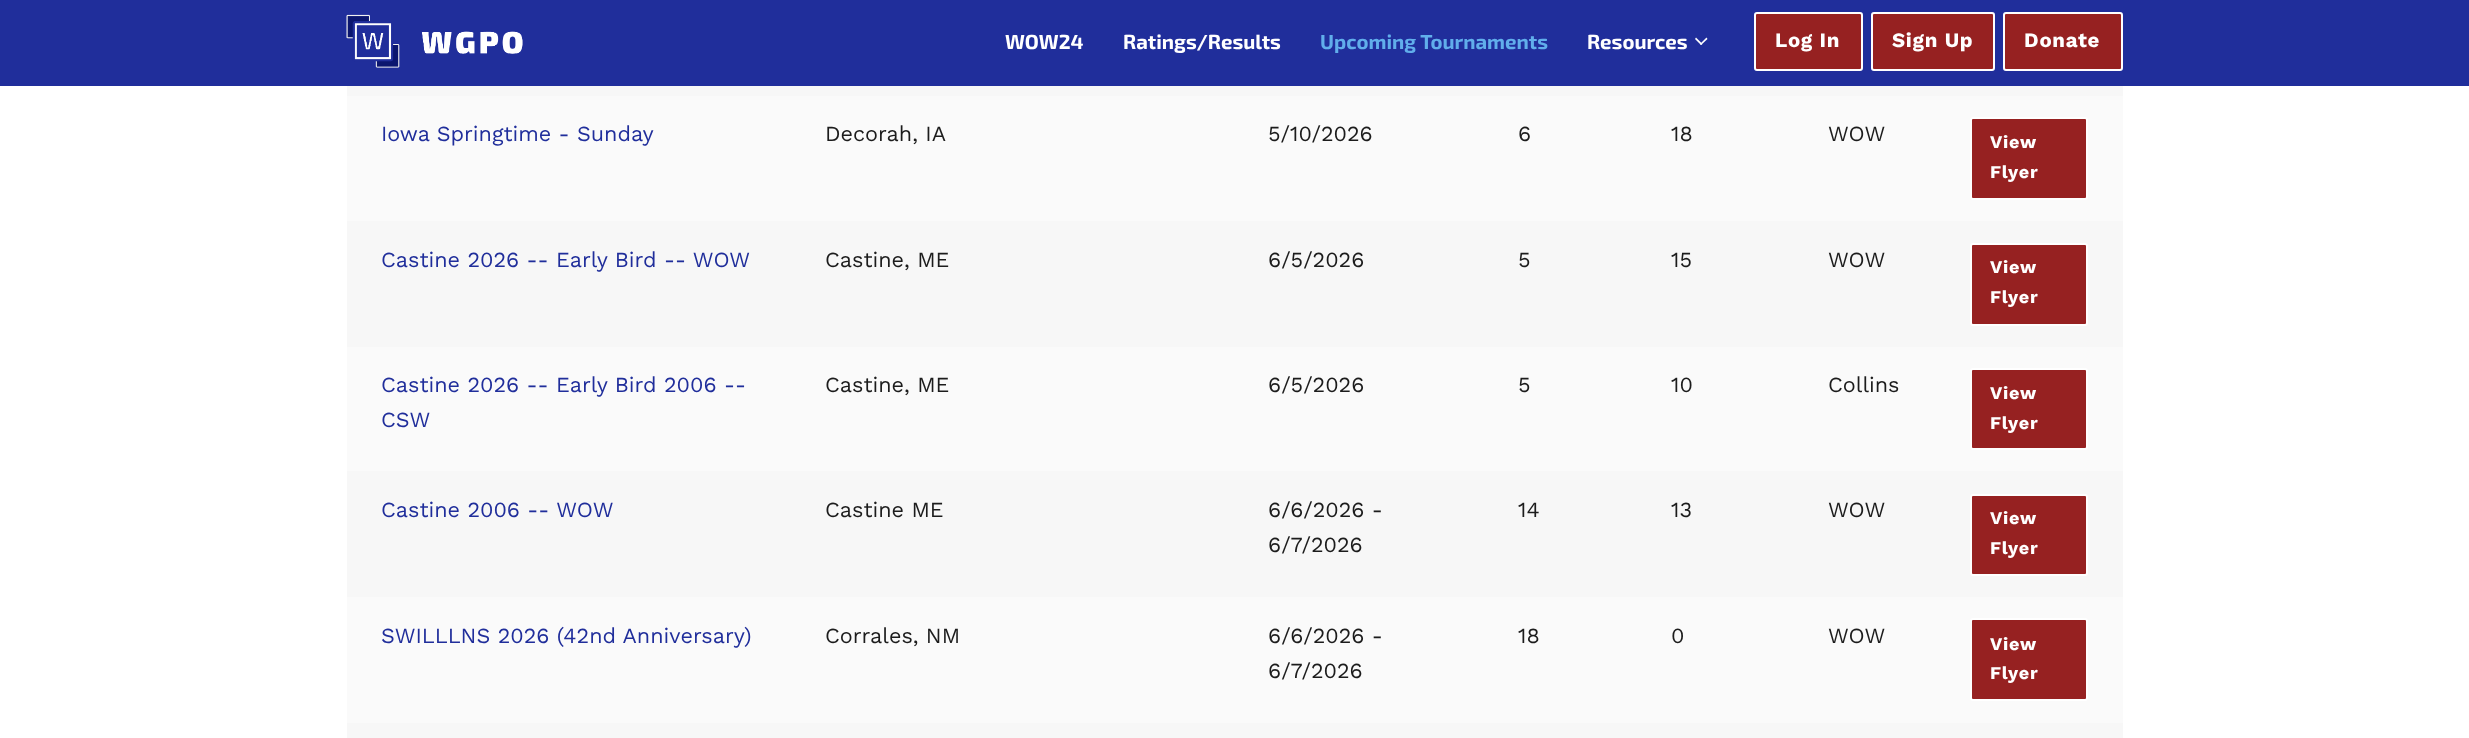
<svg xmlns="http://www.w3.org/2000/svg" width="2469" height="738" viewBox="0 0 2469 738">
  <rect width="100%" height="100%" fill="#fff"/>
  <path d="M0 0h2469v86H0z" fill="#202e9b"/>
  <image x="346" y="14" width="177" height="54" href="img/1.png"/>
  <path d="M1701 45L1695 39L1696 37.5L1702.5 44Z" fill="#fff"/>
  <path d="M1701 45L1700 44L1706.5 37.5L1707.5 39Z" fill="#fff"/>
  <rect x="1755" y="13" width="107" height="57" rx="2" fill="#962121" stroke="#fff" stroke-width="2"/>
  <rect x="1872" y="13" width="122" height="57" rx="2" fill="#962121" stroke="#fff" stroke-width="2"/>
  <rect x="2004" y="13" width="118" height="57" rx="2" fill="#962121" stroke="#fff" stroke-width="2"/>
  <path d="M347 86h1776v10H347z" fill="#f7f7f7"/>
  <path d="M347 96h1776v125H347z" fill="#fafafa"/>
  <rect x="1971" y="118" width="116" height="81" rx="2" fill="#962121" stroke="#fff" stroke-width="2"/>
  <path d="M347 221h1776v126H347z" fill="#f7f7f7"/>
  <rect x="1971" y="244" width="116" height="81" rx="2" fill="#962121" stroke="#fff" stroke-width="2"/>
  <path d="M347 347h1776v124H347z" fill="#fafafa"/>
  <rect x="1971" y="369" width="116" height="80" rx="2" fill="#962121" stroke="#fff" stroke-width="2"/>
  <path d="M347 471h1776v126H347z" fill="#f7f7f7"/>
  <rect x="1971" y="495" width="116" height="80" rx="2" fill="#962121" stroke="#fff" stroke-width="2"/>
  <path d="M347 597h1776v126H347z" fill="#fafafa"/>
  <rect x="1971" y="619" width="116" height="81" rx="2" fill="#962121" stroke="#fff" stroke-width="2"/>
  <path d="M347 723h1776v15H347z" fill="#f7f7f7"/>
  <g font-family="'Exo 2'" font-size="20.4" font-weight="bold" fill="#fff">
    <text x="1005" y="49">WOW24</text>
    <text x="1123" y="49">Ratings/Results</text>
  </g>
  <text x="1320" y="49" font-family="'Exo 2'" font-size="20.4" font-weight="bold" fill="#61aeeb">Upcoming Tournaments</text>
  <text x="1587" y="49" font-family="'Exo 2'" font-size="20.4" font-weight="bold" fill="#fff">Resources</text>
  <g font-family="Work Sans" font-size="20.4" font-weight="bold" letter-spacing="0.75" fill="#fff">
    <text x="1775" y="47">Log In</text>
    <text x="1892" y="47">Sign Up</text>
    <text x="2024" y="47">Donate</text>
  </g>
  <text x="381" y="141" font-family="Work Sans" font-size="21.6" fill="#202e9b">Iowa Springtime - Sunday</text>
  <g font-family="Work Sans" font-size="21.6" fill="#1c1c1c">
    <text x="825" y="141">Decorah, IA</text>
    <text x="1268" y="141">5/10/2026</text>
    <text x="1518" y="141">6</text>
    <text x="1671" y="141">18</text>
    <text x="1828" y="141">WOW</text>
  </g>
  <g font-family="Work Sans" font-size="18" font-weight="bold" letter-spacing="0.75" fill="#fff">
    <text x="1990" y="148">View</text>
    <text x="1990" y="178">Flyer</text>
  </g>
  <text x="381" y="267" font-family="Work Sans" font-size="21.6" fill="#202e9b">Castine 2026 -- Early Bird -- WOW</text>
  <g font-family="Work Sans" font-size="21.6" fill="#1c1c1c">
    <text x="825" y="267">Castine, ME</text>
    <text x="1268" y="267">6/5/2026</text>
    <text x="1518" y="267">5</text>
    <text x="1671" y="267">15</text>
    <text x="1828" y="267">WOW</text>
  </g>
  <g font-family="Work Sans" font-size="18" font-weight="bold" letter-spacing="0.75" fill="#fff">
    <text x="1990" y="273">View</text>
    <text x="1990" y="303">Flyer</text>
  </g>
  <g font-family="Work Sans" font-size="21.6" fill="#202e9b">
    <text x="381" y="392">Castine 2026 -- Early Bird 2006 --</text>
    <text x="381" y="427">CSW</text>
  </g>
  <g font-family="Work Sans" font-size="21.6" fill="#1c1c1c">
    <text x="825" y="392">Castine, ME</text>
    <text x="1268" y="392">6/5/2026</text>
    <text x="1518" y="392">5</text>
    <text x="1671" y="392">10</text>
    <text x="1828" y="392">Collins</text>
  </g>
  <g font-family="Work Sans" font-size="18" font-weight="bold" letter-spacing="0.75" fill="#fff">
    <text x="1990" y="399">View</text>
    <text x="1990" y="429">Flyer</text>
  </g>
  <text x="381" y="517" font-family="Work Sans" font-size="21.6" fill="#202e9b">Castine 2006 -- WOW</text>
  <g font-family="Work Sans" font-size="21.6" fill="#1c1c1c">
    <text x="825" y="517">Castine ME</text>
    <text x="1268" y="517">6/6/2026 -</text>
    <text x="1268" y="552">6/7/2026</text>
    <text x="1518" y="517">14</text>
    <text x="1671" y="517">13</text>
    <text x="1828" y="517">WOW</text>
  </g>
  <g font-family="Work Sans" font-size="18" font-weight="bold" letter-spacing="0.75" fill="#fff">
    <text x="1990" y="524">View</text>
    <text x="1990" y="554">Flyer</text>
  </g>
  <text x="381" y="643" font-family="Work Sans" font-size="21.6" fill="#202e9b">SWILLLNS 2026 (42nd Anniversary)</text>
  <g font-family="Work Sans" font-size="21.6" fill="#1c1c1c">
    <text x="825" y="643">Corrales, NM</text>
    <text x="1268" y="643">6/6/2026 -</text>
    <text x="1268" y="678">6/7/2026</text>
    <text x="1518" y="643">18</text>
    <text x="1671" y="643">0</text>
    <text x="1828" y="643">WOW</text>
  </g>
  <g font-family="Work Sans" font-size="18" font-weight="bold" letter-spacing="0.75" fill="#fff">
    <text x="1990" y="650">View</text>
    <text x="1990" y="679">Flyer</text>
  </g>
</svg>
